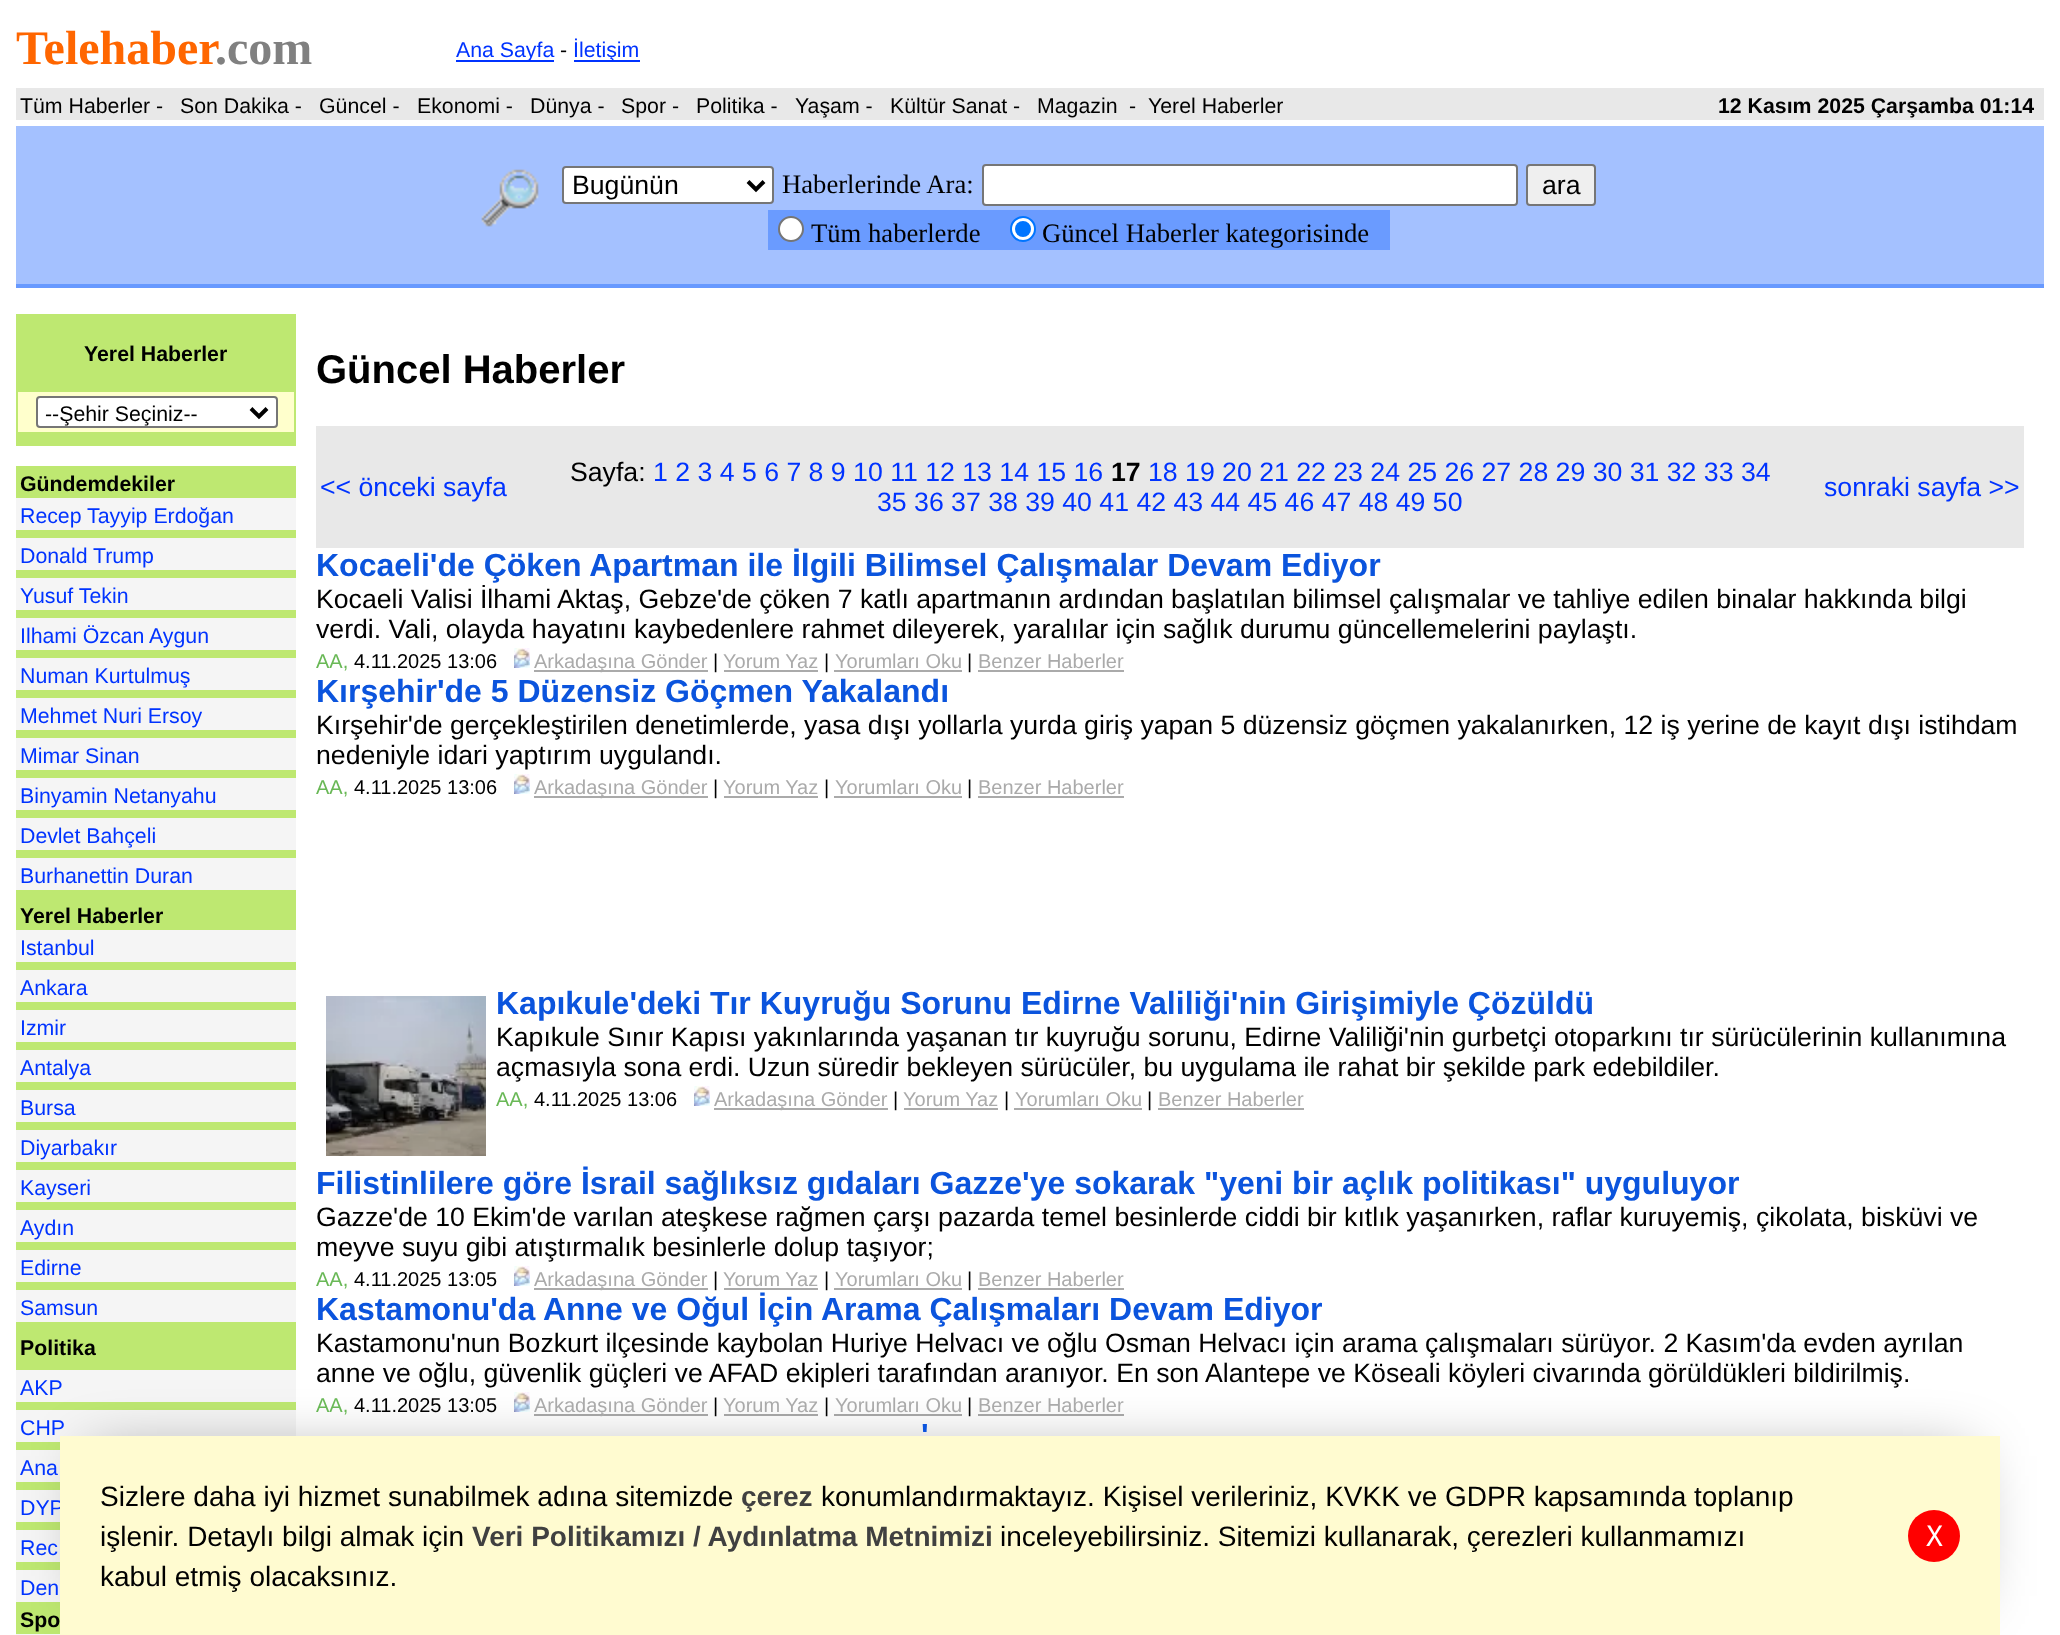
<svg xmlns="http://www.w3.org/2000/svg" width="2060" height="1635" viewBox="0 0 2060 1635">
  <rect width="100%" height="100%" fill="#fff"/>
  <path d="M456 60h98v2H456z" fill="#03f"/>
  <path d="M574 60h66v2H574z" fill="#03f"/>
  <path d="M16 88h2028v32H16z" fill="#e8e8e8"/>
  <path d="M16 126h2028v158H16z" fill="#a4c1ff"/>
  <image x="481" y="169" width="58" height="58" href="img/1.png"/>
  <rect x="563" y="167" width="210" height="36" rx="3" fill="#fff" stroke="#767676" stroke-width="2"/>
  <path d="M748 181.5L756 189.5L764 181.5" fill="none" stroke="#000" stroke-width="4"/>
  <rect x="983" y="165" width="534" height="40" rx="3" fill="#fff" stroke="#767676" stroke-width="2"/>
  <rect x="1527" y="165" width="68" height="40" rx="3" fill="#efefef" stroke="#767676" stroke-width="2"/>
  <path d="M768 210h622v40H768z" fill="#6a9bff"/>
  <circle cx="791" cy="229" r="12" fill="#fff" stroke="#767676" stroke-width="2"/>
  <circle cx="1023" cy="229" r="12" fill="#fff" stroke="#0075ff" stroke-width="2"/>
  <circle cx="1023" cy="229" r="8" fill="#0075ff"/>
  <path d="M16 284h2028v4H16z" fill="#6799ff"/>
  <path d="M16 314h280v2H16z" fill="#bee871"/>
  <path d="M294 314h2v132H294z" fill="#bee871"/>
  <path d="M16 444h280v2H16z" fill="#bee871"/>
  <path d="M16 314h2v132H16z" fill="#bee871"/>
  <path d="M18 316h276v76H18z" fill="#bee871"/>
  <path d="M18 392h276v40H18z" fill="#ffc"/>
  <rect x="37" y="397" width="240" height="30" rx="3" fill="#fff" stroke="#767676" stroke-width="2"/>
  <path d="M251 408.5L259 416.5L267 408.5" fill="none" stroke="#000" stroke-width="4"/>
  <path d="M18 434h276v10H18z" fill="#bee871"/>
  <path d="M16 432h280v2H16z" fill="#bee871"/>
  <path d="M16 498h280v392H16z" fill="#f5f5f5"/>
  <path d="M16 466h280v32H16z" fill="#bee871"/>
  <path d="M16 530h280v8H16z" fill="#bee871"/>
  <path d="M16 570h280v8H16z" fill="#bee871"/>
  <path d="M16 610h280v8H16z" fill="#bee871"/>
  <path d="M16 650h280v8H16z" fill="#bee871"/>
  <path d="M16 690h280v8H16z" fill="#bee871"/>
  <path d="M16 730h280v8H16z" fill="#bee871"/>
  <path d="M16 770h280v8H16z" fill="#bee871"/>
  <path d="M16 810h280v8H16z" fill="#bee871"/>
  <path d="M16 850h280v8H16z" fill="#bee871"/>
  <path d="M16 890h280v40H16z" fill="#bee871"/>
  <path d="M16 930h280v392H16z" fill="#f5f5f5"/>
  <path d="M16 962h280v8H16z" fill="#bee871"/>
  <path d="M16 1002h280v8H16z" fill="#bee871"/>
  <path d="M16 1042h280v8H16z" fill="#bee871"/>
  <path d="M16 1082h280v8H16z" fill="#bee871"/>
  <path d="M16 1122h280v8H16z" fill="#bee871"/>
  <path d="M16 1162h280v8H16z" fill="#bee871"/>
  <path d="M16 1202h280v8H16z" fill="#bee871"/>
  <path d="M16 1242h280v8H16z" fill="#bee871"/>
  <path d="M16 1282h280v8H16z" fill="#bee871"/>
  <path d="M16 1322h280v48H16z" fill="#bee871"/>
  <path d="M16 1370h280v265H16z" fill="#f5f5f5"/>
  <path d="M16 1402h280v8H16z" fill="#bee871"/>
  <path d="M16 1442h44v8H16z" fill="#bee871"/>
  <path d="M16 1482h44v8H16z" fill="#bee871"/>
  <path d="M16 1522h44v8H16z" fill="#bee871"/>
  <path d="M16 1562h44v8H16z" fill="#bee871"/>
  <path d="M16 1602h44v32H16z" fill="#bee871"/>
  <path d="M316 426h1708v122H316z" fill="#e8e8e8"/>
  <image x="514" y="648" width="16" height="20" href="img/2.png"/>
  <path d="M534 670h174v2H534z" fill="#aaa"/>
  <path d="M724 670h94v2H724z" fill="#aaa"/>
  <path d="M834 670h128v2H834z" fill="#aaa"/>
  <path d="M978 670h146v2H978z" fill="#aaa"/>
  <image x="514" y="774" width="16" height="20" href="img/2.png"/>
  <path d="M534 796h174v2H534z" fill="#aaa"/>
  <path d="M724 796h94v2H724z" fill="#aaa"/>
  <path d="M834 796h128v2H834z" fill="#aaa"/>
  <path d="M978 796h146v2H978z" fill="#aaa"/>
  <image x="326" y="996" width="160" height="160" href="img/3.png"/>
  <image x="694" y="1086" width="16" height="20" href="img/2.png"/>
  <path d="M714 1108h174v2H714z" fill="#aaa"/>
  <path d="M904 1108h94v2H904z" fill="#aaa"/>
  <path d="M1014 1108h128v2H1014z" fill="#aaa"/>
  <path d="M1158 1108h146v2H1158z" fill="#aaa"/>
  <image x="514" y="1266" width="16" height="20" href="img/2.png"/>
  <path d="M534 1288h174v2H534z" fill="#aaa"/>
  <path d="M724 1288h94v2H724z" fill="#aaa"/>
  <path d="M834 1288h128v2H834z" fill="#aaa"/>
  <path d="M978 1288h146v2H978z" fill="#aaa"/>
  <image x="514" y="1392" width="16" height="20" href="img/2.png"/>
  <path d="M534 1414h174v2H534z" fill="#aaa"/>
  <path d="M724 1414h94v2H724z" fill="#aaa"/>
  <path d="M834 1414h128v2H834z" fill="#aaa"/>
  <path d="M978 1414h146v2H978z" fill="#aaa"/>
  <path d="M90 1456h1880v140H90z" fill="#00000066" filter="blur(30px)"/>
  <text x="16" y="64" font-family="Liberation Serif" font-size="48" font-weight="bold" fill="#f60">Telehaber</text>
  <text x="215" y="64" font-family="Liberation Serif" font-size="48" font-weight="bold" fill="#808080">.com</text>
  <text x="456" y="57" font-family="Liberation Sans" font-size="21.3" fill="#03f">Ana Sayfa</text>
  <text x="560" y="57" font-family="Liberation Sans" font-size="21.3" fill="#000">-</text>
  <text x="573" y="57" font-family="Liberation Sans" font-size="21.3" fill="#03f">İletişim</text>
  <g font-family="Liberation Sans" font-size="21.3" fill="#000">
    <text x="20" y="113">Tüm Haberler -</text>
    <text x="180" y="113">Son Dakika -</text>
    <text x="319" y="113">Güncel -</text>
    <text x="417" y="113">Ekonomi -</text>
    <text x="530" y="113">Dünya -</text>
    <text x="621" y="113">Spor -</text>
    <text x="696" y="113">Politika -</text>
    <text x="795" y="113">Yaşam -</text>
    <text x="890" y="113">Kültür Sanat -</text>
    <text x="1037" y="113">Magazin</text>
    <text x="1129" y="113">-</text>
    <text x="1148" y="113">Yerel Haberler</text>
  </g>
  <text x="1718" y="113" font-family="Liberation Sans" font-size="21.3" font-weight="bold" fill="#000">12 Kasım 2025 Çarşamba 01:14</text>
  <text x="572" y="194" font-family="Liberation Sans" font-size="26.67" fill="#000">Bugünün</text>
  <text x="782" y="193" font-family="Liberation Serif" font-size="26.67" fill="#000">Haberlerinde Ara:</text>
  <text x="1542" y="194" font-family="Liberation Sans" font-size="26.67" fill="#000">ara</text>
  <g font-family="Liberation Serif" font-size="26.67" fill="#000">
    <text x="811" y="242">Tüm haberlerde</text>
    <text x="1042" y="242">Güncel Haberler kategorisinde</text>
  </g>
  <text x="84" y="361" font-family="Liberation Sans" font-size="21.3" font-weight="bold" fill="#000">Yerel Haberler</text>
  <text x="45" y="421" font-family="Liberation Sans" font-size="21.3" fill="#000">--Şehir Seçiniz--</text>
  <text x="20" y="491" font-family="Liberation Sans" font-size="21.3" font-weight="bold" fill="#000">Gündemdekiler</text>
  <g font-family="Liberation Sans" font-size="21.3" fill="#03f">
    <text x="20" y="523">Recep Tayyip Erdoğan</text>
    <text x="20" y="563">Donald Trump</text>
    <text x="20" y="603">Yusuf Tekin</text>
    <text x="20" y="643">Ilhami Özcan Aygun</text>
    <text x="20" y="683">Numan Kurtulmuş</text>
    <text x="20" y="723">Mehmet Nuri Ersoy</text>
    <text x="20" y="763">Mimar Sinan</text>
    <text x="20" y="803">Binyamin Netanyahu</text>
    <text x="20" y="843">Devlet Bahçeli</text>
    <text x="20" y="883">Burhanettin Duran</text>
  </g>
  <text x="20" y="923" font-family="Liberation Sans" font-size="21.3" font-weight="bold" fill="#000">Yerel Haberler</text>
  <g font-family="Liberation Sans" font-size="21.3" fill="#03f">
    <text x="20" y="955">Istanbul</text>
    <text x="20" y="995">Ankara</text>
    <text x="20" y="1035">Izmir</text>
    <text x="20" y="1075">Antalya</text>
    <text x="20" y="1115">Bursa</text>
    <text x="20" y="1155">Diyarbakır</text>
    <text x="20" y="1195">Kayseri</text>
    <text x="20" y="1235">Aydın</text>
    <text x="20" y="1275">Edirne</text>
    <text x="20" y="1315">Samsun</text>
  </g>
  <text x="20" y="1355" font-family="Liberation Sans" font-size="21.3" font-weight="bold" fill="#000">Politika</text>
  <g font-family="Liberation Sans" font-size="21.3" fill="#03f">
    <text x="20" y="1395">AKP</text>
    <text x="20" y="1435">CHP</text>
    <text x="20" y="1475">Ana</text>
    <text x="20" y="1515">DYP</text>
    <text x="20" y="1555">Rec</text>
    <text x="20" y="1595">Den</text>
  </g>
  <text x="20" y="1627" font-family="Liberation Sans" font-size="21.3" font-weight="bold" fill="#000">Spo</text>
  <text x="316" y="383" font-family="Liberation Sans" font-size="40" font-weight="bold" fill="#000">Güncel Haberler</text>
  <text x="320" y="496" font-family="Liberation Sans" font-size="26.67" fill="#03f">&lt;&lt; önceki sayfa</text>
  <text x="570" y="481" font-family="Liberation Sans" font-size="26.67" fill="#000">Sayfa:</text>
  <text x="653" y="481" font-family="Liberation Sans" font-size="26.67" fill="#03f">1 2 3 4 5 6 7 8 9 10 11 12 13 14 15 16</text>
  <text x="1111" y="481" font-family="Liberation Sans" font-size="26.67" font-weight="bold" fill="#000">17</text>
  <g font-family="Liberation Sans" font-size="26.67" fill="#03f">
    <text x="1148" y="481">18 19 20 21 22 23 24 25 26 27 28 29 30 31 32 33 34</text>
    <text x="877" y="511">35 36 37 38 39 40 41 42 43 44 45 46 47 48 49 50</text>
    <text x="1824" y="496">sonraki sayfa &gt;&gt;</text>
  </g>
  <text x="316" y="576" font-family="Liberation Sans" font-size="32" font-weight="bold" fill="#0b54dd">Kocaeli'de Çöken Apartman ile İlgili Bilimsel Çalışmalar Devam Ediyor</text>
  <g font-family="Liberation Sans" font-size="26.67" fill="#000">
    <text x="316" y="608">Kocaeli Valisi İlhami Aktaş, Gebze'de çöken 7 katlı apartmanın ardından başlatılan bilimsel çalışmalar ve tahliye edilen binalar hakkında bilgi</text>
    <text x="316" y="638">verdi. Vali, olayda hayatını kaybedenlere rahmet dileyerek, yaralılar için sağlık durumu güncellemelerini paylaştı.</text>
  </g>
  <text x="316" y="668" font-family="Liberation Sans" font-size="20" fill="#69b856">AA,</text>
  <text x="354" y="668" font-family="Liberation Sans" font-size="20" fill="#000">4.11.2025 13:06</text>
  <text x="534" y="668" font-family="Liberation Sans" font-size="20" fill="#aaa">Arkadaşına Gönder</text>
  <text x="713" y="668" font-family="Liberation Sans" font-size="20" fill="#000">|</text>
  <text x="723" y="668" font-family="Liberation Sans" font-size="20" fill="#aaa">Yorum Yaz</text>
  <text x="824" y="668" font-family="Liberation Sans" font-size="20" fill="#000">|</text>
  <text x="835" y="668" font-family="Liberation Sans" font-size="20" fill="#aaa">Yorumları Oku</text>
  <text x="967" y="668" font-family="Liberation Sans" font-size="20" fill="#000">|</text>
  <text x="978" y="668" font-family="Liberation Sans" font-size="20" fill="#aaa">Benzer Haberler</text>
  <text x="316" y="702" font-family="Liberation Sans" font-size="32" font-weight="bold" fill="#0b54dd">Kırşehir'de 5 Düzensiz Göçmen Yakalandı</text>
  <g font-family="Liberation Sans" font-size="26.67" fill="#000">
    <text x="316" y="734">Kırşehir'de gerçekleştirilen denetimlerde, yasa dışı yollarla yurda giriş yapan 5 düzensiz göçmen yakalanırken, 12 iş yerine de kayıt dışı istihdam</text>
    <text x="316" y="764">nedeniyle idari yaptırım uygulandı.</text>
  </g>
  <text x="316" y="794" font-family="Liberation Sans" font-size="20" fill="#69b856">AA,</text>
  <text x="354" y="794" font-family="Liberation Sans" font-size="20" fill="#000">4.11.2025 13:06</text>
  <text x="534" y="794" font-family="Liberation Sans" font-size="20" fill="#aaa">Arkadaşına Gönder</text>
  <text x="713" y="794" font-family="Liberation Sans" font-size="20" fill="#000">|</text>
  <text x="723" y="794" font-family="Liberation Sans" font-size="20" fill="#aaa">Yorum Yaz</text>
  <text x="824" y="794" font-family="Liberation Sans" font-size="20" fill="#000">|</text>
  <text x="835" y="794" font-family="Liberation Sans" font-size="20" fill="#aaa">Yorumları Oku</text>
  <text x="967" y="794" font-family="Liberation Sans" font-size="20" fill="#000">|</text>
  <text x="978" y="794" font-family="Liberation Sans" font-size="20" fill="#aaa">Benzer Haberler</text>
  <text x="496" y="1014" font-family="Liberation Sans" font-size="32" font-weight="bold" fill="#0b54dd">Kapıkule'deki Tır Kuyruğu Sorunu Edirne Valiliği'nin Girişimiyle Çözüldü</text>
  <g font-family="Liberation Sans" font-size="26.67" fill="#000">
    <text x="496" y="1046">Kapıkule Sınır Kapısı yakınlarında yaşanan tır kuyruğu sorunu, Edirne Valiliği'nin gurbetçi otoparkını tır sürücülerinin kullanımına</text>
    <text x="496" y="1076">açmasıyla sona erdi. Uzun süredir bekleyen sürücüler, bu uygulama ile rahat bir şekilde park edebildiler.</text>
  </g>
  <text x="496" y="1106" font-family="Liberation Sans" font-size="20" fill="#69b856">AA,</text>
  <text x="534" y="1106" font-family="Liberation Sans" font-size="20" fill="#000">4.11.2025 13:06</text>
  <text x="714" y="1106" font-family="Liberation Sans" font-size="20" fill="#aaa">Arkadaşına Gönder</text>
  <text x="893" y="1106" font-family="Liberation Sans" font-size="20" fill="#000">|</text>
  <text x="903" y="1106" font-family="Liberation Sans" font-size="20" fill="#aaa">Yorum Yaz</text>
  <text x="1004" y="1106" font-family="Liberation Sans" font-size="20" fill="#000">|</text>
  <text x="1015" y="1106" font-family="Liberation Sans" font-size="20" fill="#aaa">Yorumları Oku</text>
  <text x="1147" y="1106" font-family="Liberation Sans" font-size="20" fill="#000">|</text>
  <text x="1158" y="1106" font-family="Liberation Sans" font-size="20" fill="#aaa">Benzer Haberler</text>
  <text x="316" y="1194" font-family="Liberation Sans" font-size="32" font-weight="bold" fill="#0b54dd">Filistinlilere göre İsrail sağlıksız gıdaları Gazze'ye sokarak "yeni bir açlık politikası" uyguluyor</text>
  <g font-family="Liberation Sans" font-size="26.67" fill="#000">
    <text x="316" y="1226">Gazze'de 10 Ekim'de varılan ateşkese rağmen çarşı pazarda temel besinlerde ciddi bir kıtlık yaşanırken, raflar kuruyemiş, çikolata, bisküvi ve</text>
    <text x="316" y="1256">meyve suyu gibi atıştırmalık besinlerle dolup taşıyor;</text>
  </g>
  <text x="316" y="1286" font-family="Liberation Sans" font-size="20" fill="#69b856">AA,</text>
  <text x="354" y="1286" font-family="Liberation Sans" font-size="20" fill="#000">4.11.2025 13:05</text>
  <text x="534" y="1286" font-family="Liberation Sans" font-size="20" fill="#aaa">Arkadaşına Gönder</text>
  <text x="713" y="1286" font-family="Liberation Sans" font-size="20" fill="#000">|</text>
  <text x="723" y="1286" font-family="Liberation Sans" font-size="20" fill="#aaa">Yorum Yaz</text>
  <text x="824" y="1286" font-family="Liberation Sans" font-size="20" fill="#000">|</text>
  <text x="835" y="1286" font-family="Liberation Sans" font-size="20" fill="#aaa">Yorumları Oku</text>
  <text x="967" y="1286" font-family="Liberation Sans" font-size="20" fill="#000">|</text>
  <text x="978" y="1286" font-family="Liberation Sans" font-size="20" fill="#aaa">Benzer Haberler</text>
  <text x="316" y="1320" font-family="Liberation Sans" font-size="32" font-weight="bold" fill="#0b54dd">Kastamonu'da Anne ve Oğul İçin Arama Çalışmaları Devam Ediyor</text>
  <g font-family="Liberation Sans" font-size="26.67" fill="#000">
    <text x="316" y="1352">Kastamonu'nun Bozkurt ilçesinde kaybolan Huriye Helvacı ve oğlu Osman Helvacı için arama çalışmaları sürüyor. 2 Kasım'da evden ayrılan</text>
    <text x="316" y="1382">anne ve oğlu, güvenlik güçleri ve AFAD ekipleri tarafından aranıyor. En son Alantepe ve Köseali köyleri civarında görüldükleri bildirilmiş.</text>
  </g>
  <text x="316" y="1412" font-family="Liberation Sans" font-size="20" fill="#69b856">AA,</text>
  <text x="354" y="1412" font-family="Liberation Sans" font-size="20" fill="#000">4.11.2025 13:05</text>
  <text x="534" y="1412" font-family="Liberation Sans" font-size="20" fill="#aaa">Arkadaşına Gönder</text>
  <text x="713" y="1412" font-family="Liberation Sans" font-size="20" fill="#000">|</text>
  <text x="723" y="1412" font-family="Liberation Sans" font-size="20" fill="#aaa">Yorum Yaz</text>
  <text x="824" y="1412" font-family="Liberation Sans" font-size="20" fill="#000">|</text>
  <text x="835" y="1412" font-family="Liberation Sans" font-size="20" fill="#aaa">Yorumları Oku</text>
  <text x="967" y="1412" font-family="Liberation Sans" font-size="20" fill="#000">|</text>
  <text x="978" y="1412" font-family="Liberation Sans" font-size="20" fill="#aaa">Benzer Haberler</text>
  <text x="921" y="1446" font-family="Liberation Sans" font-size="32" font-weight="bold" fill="#0b54dd">'</text>
  <path d="M60 1436h1940v199H60z" fill="#fffbd0"/>
  <text x="100" y="1506" font-family="Liberation Sans" font-size="28" fill="#000">Sizlere daha iyi hizmet sunabilmek adına sitemizde</text>
  <text x="741" y="1506" font-family="Liberation Sans" font-size="28" font-weight="bold" fill="#404040">çerez</text>
  <g font-family="Liberation Sans" font-size="28" fill="#000">
    <text x="821" y="1506">konumlandırmaktayız. Kişisel verileriniz, KVKK ve GDPR kapsamında toplanıp</text>
    <text x="100" y="1546">işlenir. Detaylı bilgi almak için</text>
  </g>
  <text x="472" y="1546" font-family="Liberation Sans" font-size="28" font-weight="bold" fill="#404040">Veri Politikamızı / Aydınlatma Metnimizi</text>
  <text x="1000" y="1546" font-family="Liberation Sans" font-size="28" fill="#000">inceleyebilirsiniz. Sitemizi kullanarak, çerezleri kullanmamızı</text>
  <circle cx="1934" cy="1536" r="26" fill="#f00"/>
  <text x="1926" y="1546" font-family="DejaVu Sans Mono" font-size="28" fill="#fff">X</text>
  <text x="100" y="1586" font-family="Liberation Sans" font-size="28" fill="#000">kabul etmiş olacaksınız.</text>
</svg>
